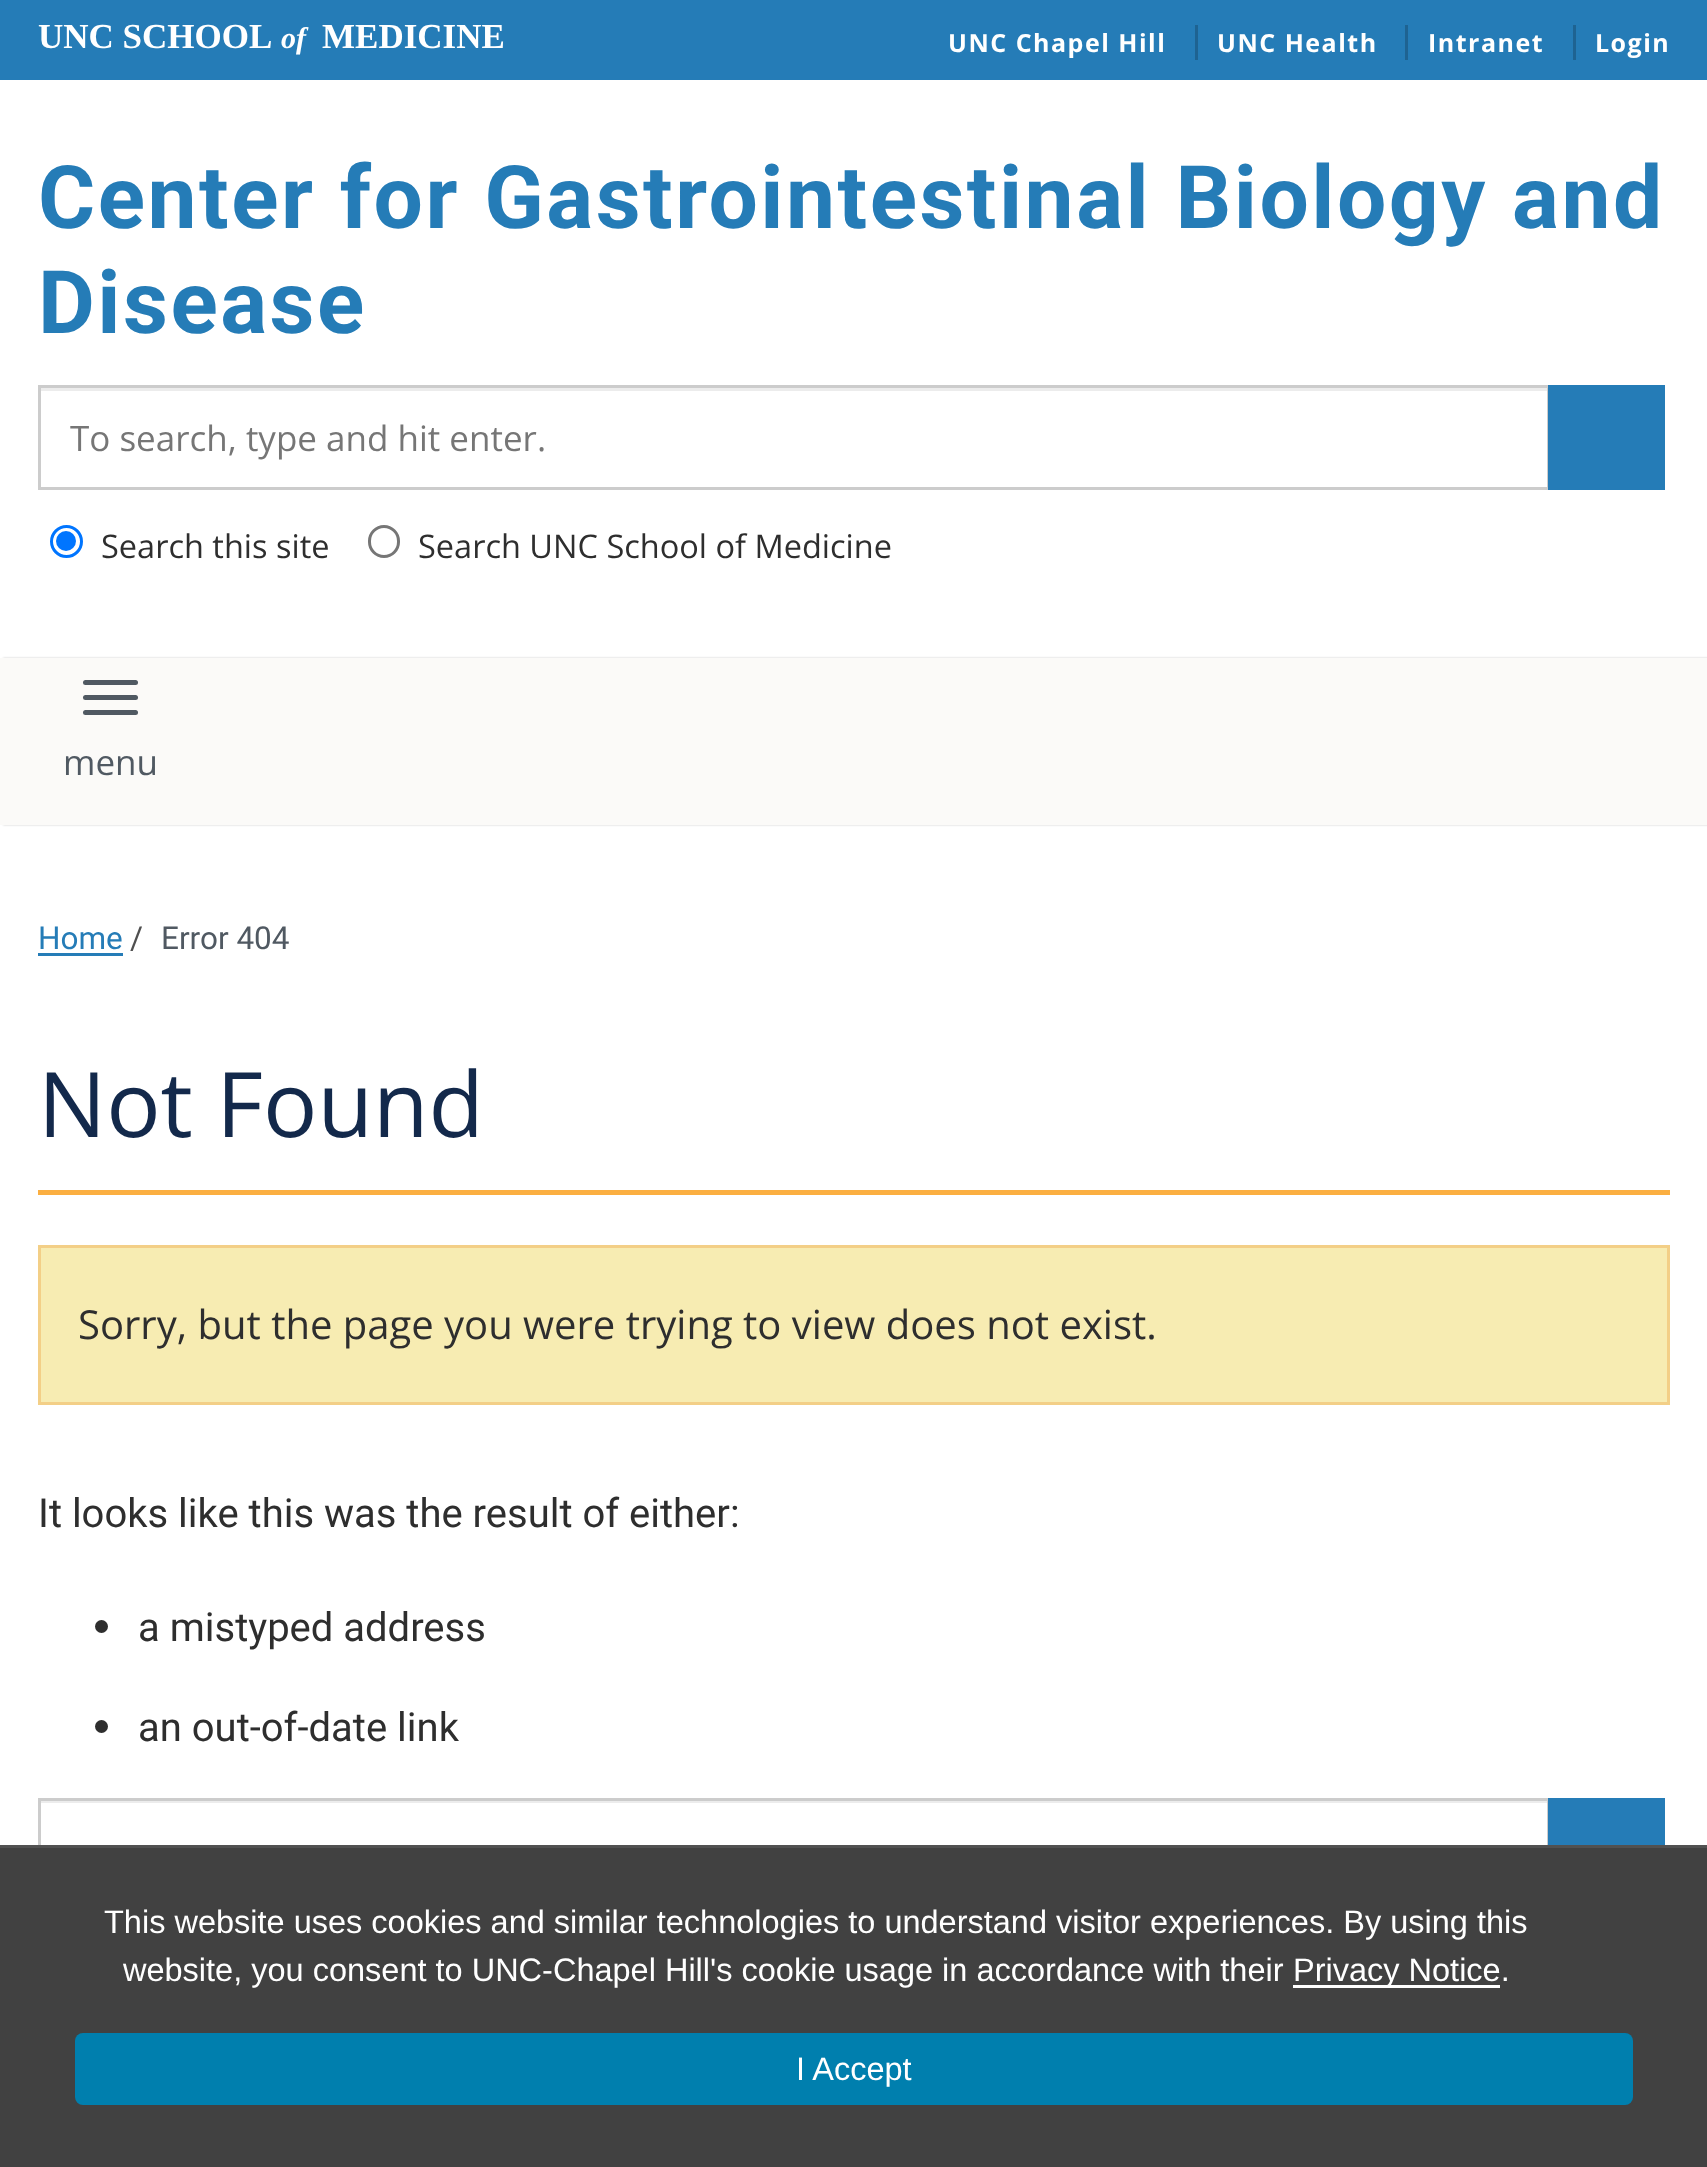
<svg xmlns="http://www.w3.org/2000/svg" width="1707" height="2167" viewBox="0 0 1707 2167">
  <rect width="100%" height="100%" fill="#fff"/>
  <path d="M0 0h1707v80H0z" fill="#257cb7"/>
  <path d="M1195 25h3v35H1195z" fill="#1e6392"/>
  <path d="M1405 25h3v35H1405z" fill="#1e6392"/>
  <path d="M1573 25h3v35H1573z" fill="#1e6392"/>
  <path d="M40 388h1508v3H40z" fill="#ececec"/>
  <path d="M39.5 386.5h1509v102H39.5z" fill="none" stroke="#ccc" stroke-width="3"/>
  <path d="M1548 385h117v105H1548z" fill="#257cb7"/>
  <circle cx="66.5" cy="541.5" r="15" fill="none" stroke="#0075ff" stroke-width="3"/>
  <circle cx="66" cy="541" r="10" fill="#0075ff"/>
  <rect x="369.5" y="526.5" width="29" height="30" rx="14.5" fill="none" stroke="#767676" stroke-width="3"/>
  <path d="M3 658h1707v167H3z" fill="#bdbdbdbf" filter="blur(1px)"/>
  <path d="M0 658h1707v167H0z" fill="#fbfaf8"/>
  <rect x="83" y="680" width="55" height="5" rx="2.5" fill="#505962"/>
  <rect x="83" y="695" width="55" height="5" rx="2.5" fill="#505962"/>
  <rect x="83" y="710" width="55" height="5" rx="2.5" fill="#505962"/>
  <path d="M38 953h85v3H38z" fill="#257cb7"/>
  <path d="M38 1190h1632v5H38z" fill="#fbaf41"/>
  <path d="M39.5 1246.5h1629v157H39.5z" fill="#f7ecb2" stroke="#f3cf87" stroke-width="3"/>
  <circle cx="101.5" cy="1626.5" r="6.5" fill="#2e2e2e"/>
  <circle cx="101.5" cy="1726.5" r="6.5" fill="#2e2e2e"/>
  <path d="M40 1801h1508v2H40z" fill="#ececec"/>
  <path d="M39.5 1799.5h1509v102H39.5z" fill="none" stroke="#ccc" stroke-width="3"/>
  <path d="M1548 1798h117v47H1548z" fill="#257cb7"/>
  <path d="M0 1848h1707v319H0z" fill="#414141"/>
  <path d="M0 1845h1707v3H0z" fill="#515151"/>
  <path d="M1293 1985h207v3H1293z" fill="#fff"/>
  <rect x="75" y="2033" width="1558" height="72" rx="8" fill="#007fae"/>
  <text x="38" y="48" font-family="Liberation Serif" font-size="35" font-weight="bold" fill="#fff">UNC SCHOOL</text>
  <text x="281" y="48" font-family="Liberation Serif" font-size="30" font-weight="bold" font-style="italic" fill="#fff">of</text>
  <text x="322" y="48" font-family="Liberation Serif" font-size="35" font-weight="bold" fill="#fff">MEDICINE</text>
  <g font-family="Open Sans" font-size="25" font-weight="bold" letter-spacing="1.5" fill="#fff">
    <text x="948" y="52">UNC Chapel Hill</text>
    <text x="1217" y="52">UNC Health</text>
    <text x="1428" y="52">Intranet</text>
    <text x="1595" y="52">Login</text>
  </g>
  <g font-family="Roboto" font-size="87.5" font-weight="bold" letter-spacing="2.5" fill="#257cb7">
    <text x="38" y="228">Center for Gastrointestinal Biology and</text>
    <text x="38" y="333">Disease</text>
  </g>
  <text x="70" y="451" font-family="Open Sans" font-size="35" fill="#767676">To search, type and hit enter.</text>
  <g font-family="Open Sans" font-size="32.5" fill="#2e2e2e">
    <text x="101" y="558">Search this site</text>
    <text x="418" y="558">Search UNC School of Medicine</text>
  </g>
  <text x="63" y="775" font-family="Open Sans" font-size="35" fill="#505962">menu</text>
  <text x="38" y="949" font-family="Roboto" font-size="31.5" fill="#257cb7">Home</text>
  <text x="130" y="949" font-family="Roboto" font-size="31.5" fill="#4f4f4f">/</text>
  <text x="161" y="949" font-family="Roboto" font-size="31.5" fill="#505962">Error 404</text>
  <text x="38" y="1137" font-family="Open Sans" font-size="90.5" fill="#13294b">Not Found</text>
  <text x="78" y="1339" font-family="Open Sans" font-size="40" fill="#2e2e2e">Sorry, but the page you were trying to view does not exist.</text>
  <g font-family="Roboto" font-size="40" fill="#2e2e2e">
    <text x="38" y="1527">It looks like this was the result of either:</text>
    <text x="138" y="1641">a mistyped address</text>
    <text x="138" y="1741">an out-of-date link</text>
  </g>
  <g font-family="Liberation Sans" font-size="32.5" fill="#fff">
    <text x="104" y="1933">This website uses cookies and similar technologies to understand visitor experiences. By using this</text>
    <text x="123" y="1981">website, you consent to UNC-Chapel Hill's cookie usage in accordance with their</text>
    <text x="1293" y="1981">Privacy Notice.</text>
    <text x="796" y="2080">I Accept</text>
  </g>
</svg>
